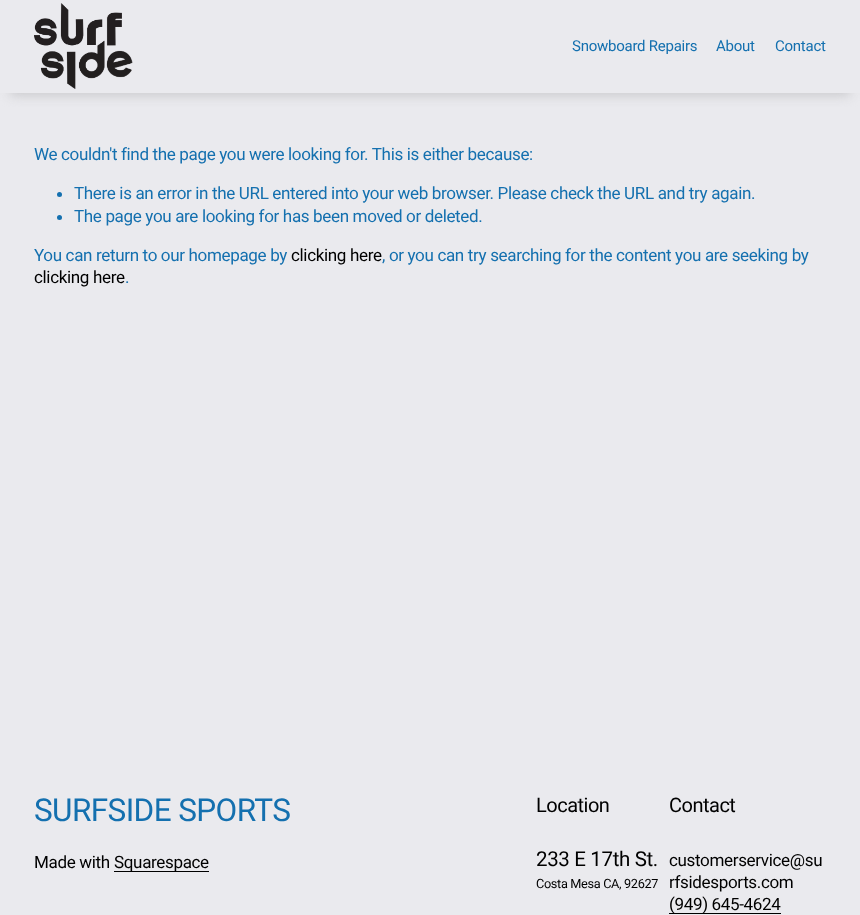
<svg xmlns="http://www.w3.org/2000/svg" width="860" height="915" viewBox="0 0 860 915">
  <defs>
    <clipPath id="clip1"><path d="M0 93h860v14H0z"/></clipPath>
  </defs>
  <rect width="100%" height="100%" fill="#eaeaee"/>
  <g clip-path="url(#clip1)">
    <path d="M10 22h840v73H10z" fill="#c7c7ca" filter="blur(6px)"/>
  </g>
  <image x="34" y="3" width="99" height="86" href="img/1.png"/>
  <circle cx="59.5" cy="194.5" r="2.5" fill="#1470af"/>
  <circle cx="59.5" cy="217.5" r="2.5" fill="#1470af"/>
  <path d="M669 913h112v1H669z" fill="#000"/>
  <path d="M114 871h95v1H114z" fill="#000"/>
  <g font-family="Roboto" font-size="15" letter-spacing="-0.25" fill="#1470af">
    <text x="572" y="51">Snowboard Repairs</text>
    <text x="716" y="51">About</text>
    <text x="775" y="51">Contact</text>
  </g>
  <g font-family="Roboto" font-size="17.05" letter-spacing="-0.35" fill="#1470af">
    <text x="34" y="160">We couldn't find the page you were looking for. This is either because:</text>
    <text x="74" y="199">There is an error in the URL entered into your web browser. Please check the URL and try again.</text>
    <text x="74" y="222">The page you are looking for has been moved or deleted.</text>
    <text x="34" y="261">You can return to our homepage by</text>
  </g>
  <text x="291" y="261" font-family="Roboto" font-size="17.05" letter-spacing="-0.35" fill="#000">clicking here</text>
  <text x="382" y="261" font-family="Roboto" font-size="17.05" letter-spacing="-0.35" fill="#1470af">, or you can try searching for the content you are seeking by</text>
  <text x="34" y="283" font-family="Roboto" font-size="17.05" letter-spacing="-0.35" fill="#000">clicking here</text>
  <text x="125" y="283" font-family="Roboto" font-size="17.05" letter-spacing="-0.35" fill="#1470af">.</text>
  <text x="34" y="821" font-family="Roboto" font-size="31.5" letter-spacing="-0.6" fill="#1470af">SURFSIDE SPORTS</text>
  <text x="536" y="812" font-family="Roboto" font-size="20" letter-spacing="-0.5" fill="#000">Location</text>
  <text x="536" y="866" font-family="Roboto" font-size="20.5" letter-spacing="-0.35" fill="#000">233 E 17th St.</text>
  <text x="536" y="888" font-family="Roboto" font-size="12.75" letter-spacing="-0.35" fill="#000">Costa Mesa CA, 92627</text>
  <text x="669" y="812" font-family="Roboto" font-size="20" letter-spacing="-0.5" fill="#000">Contact</text>
  <g font-family="Roboto" font-size="17.05" letter-spacing="-0.35" fill="#000">
    <text x="669" y="866">customerservice@su</text>
    <text x="669" y="888">rfsidesports.com</text>
    <text x="669" y="910">(949) 645-4624</text>
    <text x="34" y="868">Made with</text>
    <text x="114" y="868">Squarespace</text>
  </g>
</svg>
